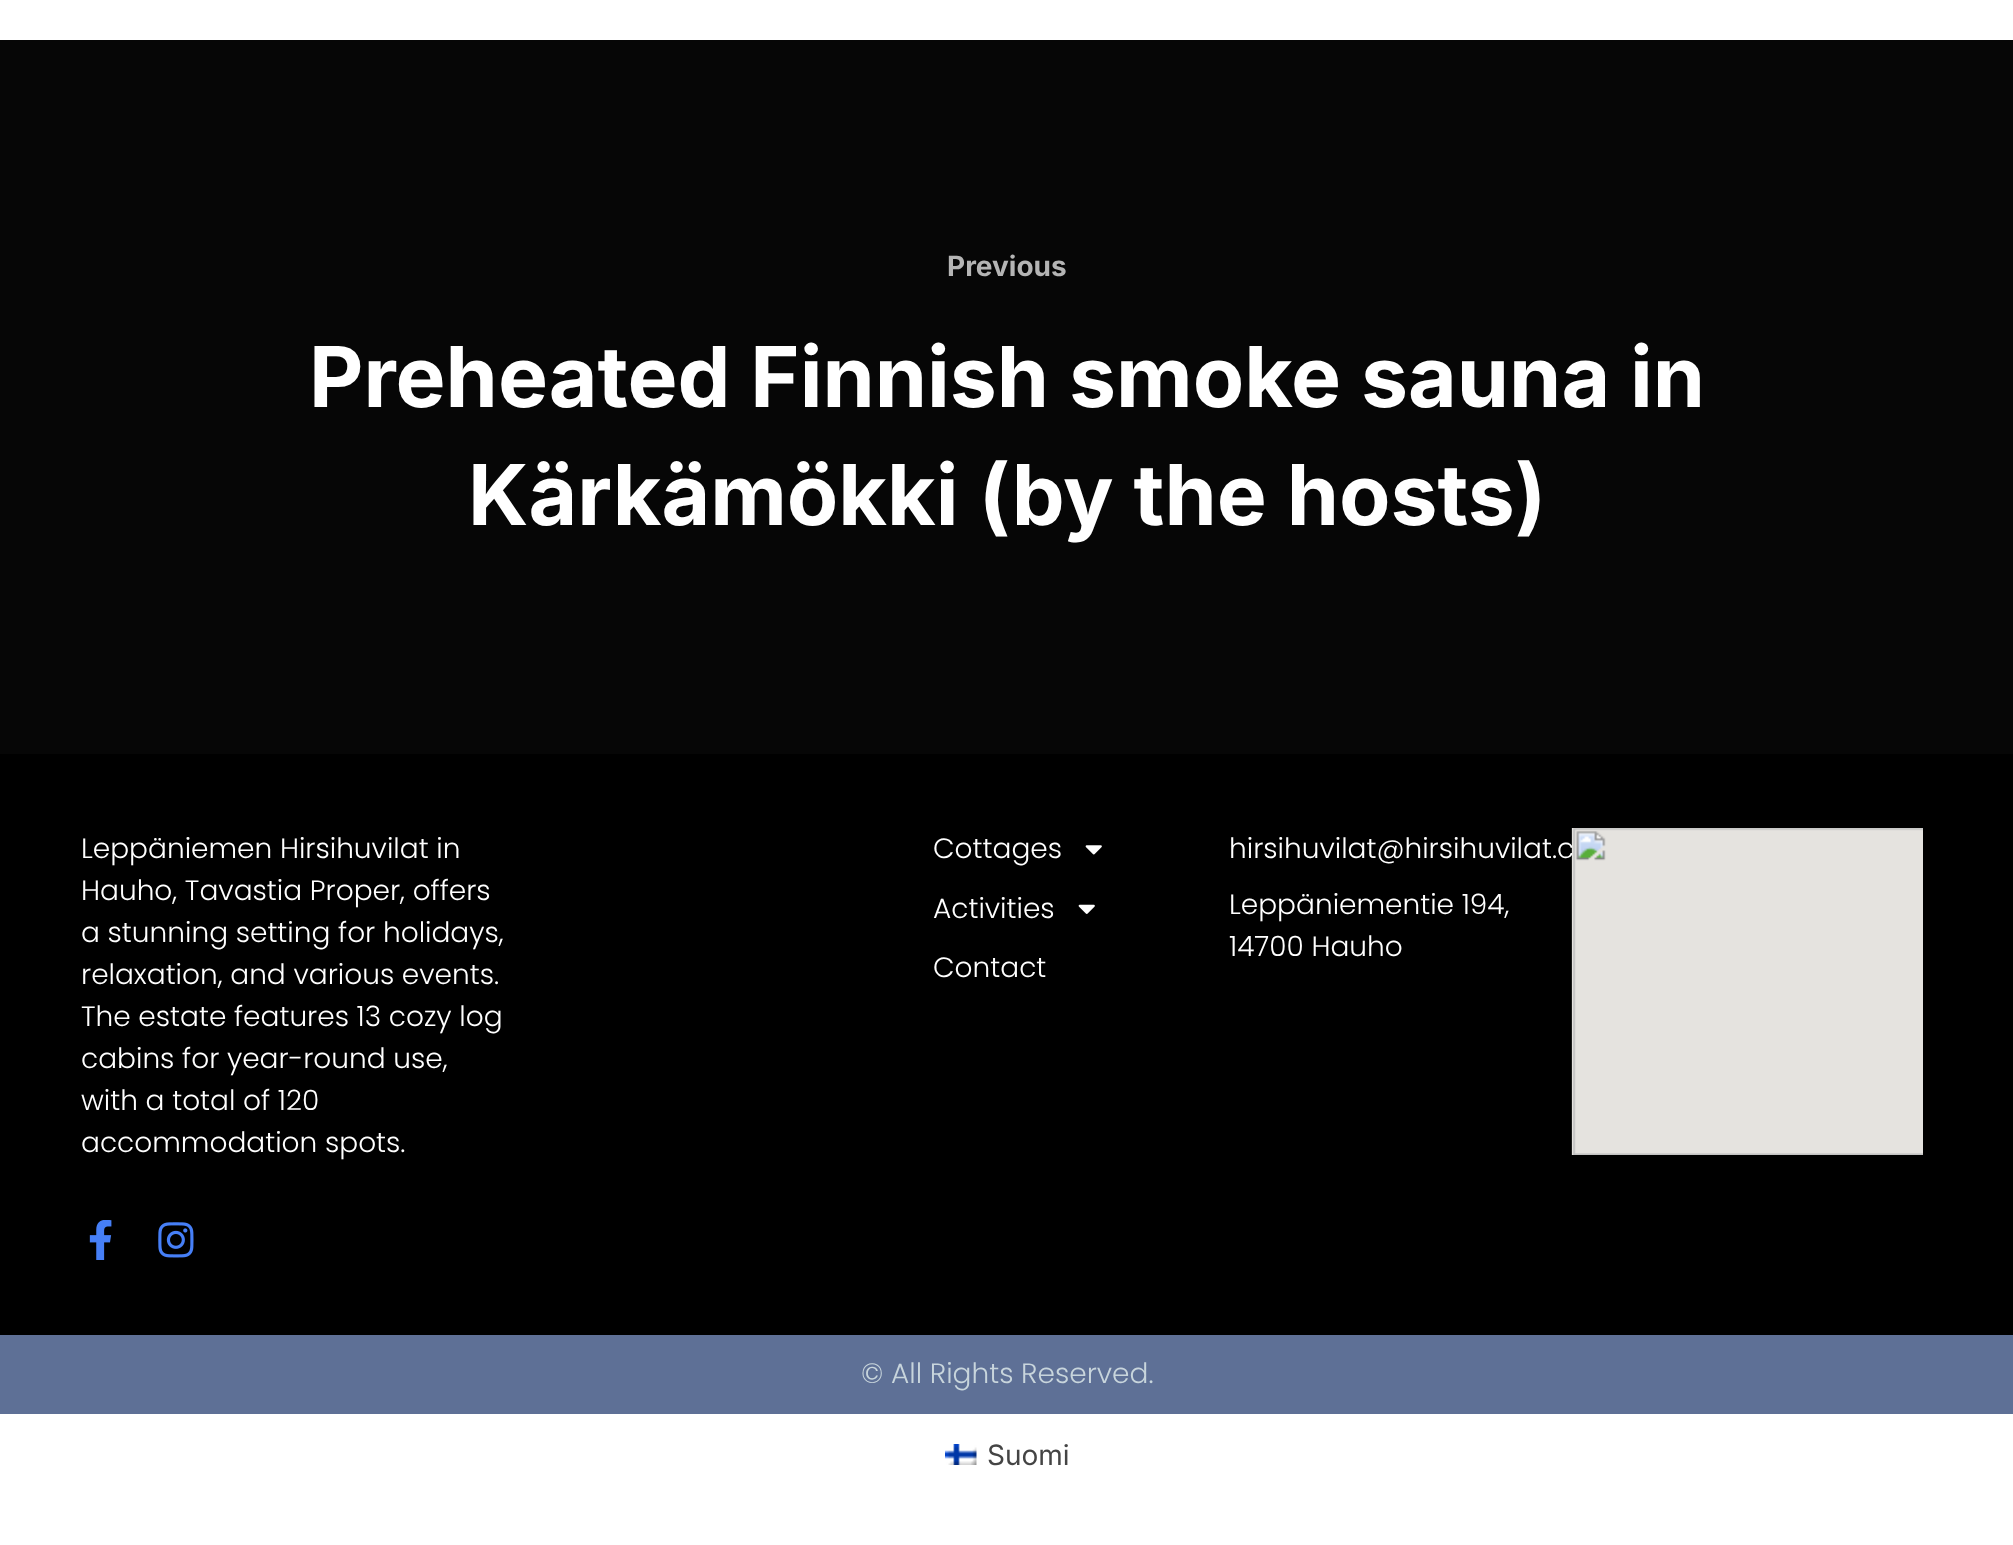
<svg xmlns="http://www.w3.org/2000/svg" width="2013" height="1545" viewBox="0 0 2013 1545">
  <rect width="100%" height="100%" fill="#fff"/>
  <path d="M0 40h2013v714H0z" fill="#060606"/>
  <path d="M0 754h2013v581H0z" fill="#000"/>
  <image x="89" y="1220" width="23" height="40" href="img/1.png"/>
  <image x="158" y="1222" width="36" height="36" href="img/2.png"/>
  <image x="1085" y="845" width="17" height="10" href="img/3.png"/>
  <image x="1078" y="904" width="17" height="10" href="img/4.png"/>
  <path d="M0 1335h2013v79H0z" fill="#5e7096"/>
  <image x="945" y="1444" width="32" height="21" href="img/6.png"/>
  <text x="947" y="276" font-family="Inter" font-size="28" font-weight="bold" fill="#b4b4b4">Previous</text>
  <g font-family="Inter" font-size="84" font-weight="bold" fill="#fff">
    <text x="309" y="407">Preheated Finnish smoke sauna in</text>
    <text x="468" y="525">Kärkämökki (by the hosts)</text>
  </g>
  <g font-family="Poppins" font-size="28" font-weight="300" fill="#fff">
    <text x="81" y="858">Leppäniemen Hirsihuvilat in</text>
    <text x="81" y="900">Hauho, Tavastia Proper, offers</text>
    <text x="81" y="942">a stunning setting for holidays,</text>
    <text x="81" y="984">relaxation, and various events.</text>
    <text x="81" y="1026">The estate features 13 cozy log</text>
    <text x="81" y="1068">cabins for year-round use,</text>
    <text x="81" y="1110">with a total of 120</text>
    <text x="81" y="1152">accommodation spots.</text>
    <text x="933" y="858">Cottages</text>
    <text x="933" y="918">Activities</text>
    <text x="933" y="977">Contact</text>
    <text x="1229" y="858">hirsihuvilat@hirsihuvilat.c</text>
    <text x="1229" y="914">Leppäniementie 194,</text>
    <text x="1229" y="956">14700 Hauho</text>
  </g>
  <image x="1571" y="828" width="352" height="327" href="img/5.png"/>
  <text x="861" y="1383" font-family="Poppins" font-size="28" font-weight="300" fill="#c8d5dc">© All Rights Reserved.</text>
  <text x="987" y="1465" font-family="Inter" font-size="28" fill="#444">Suomi</text>
</svg>
